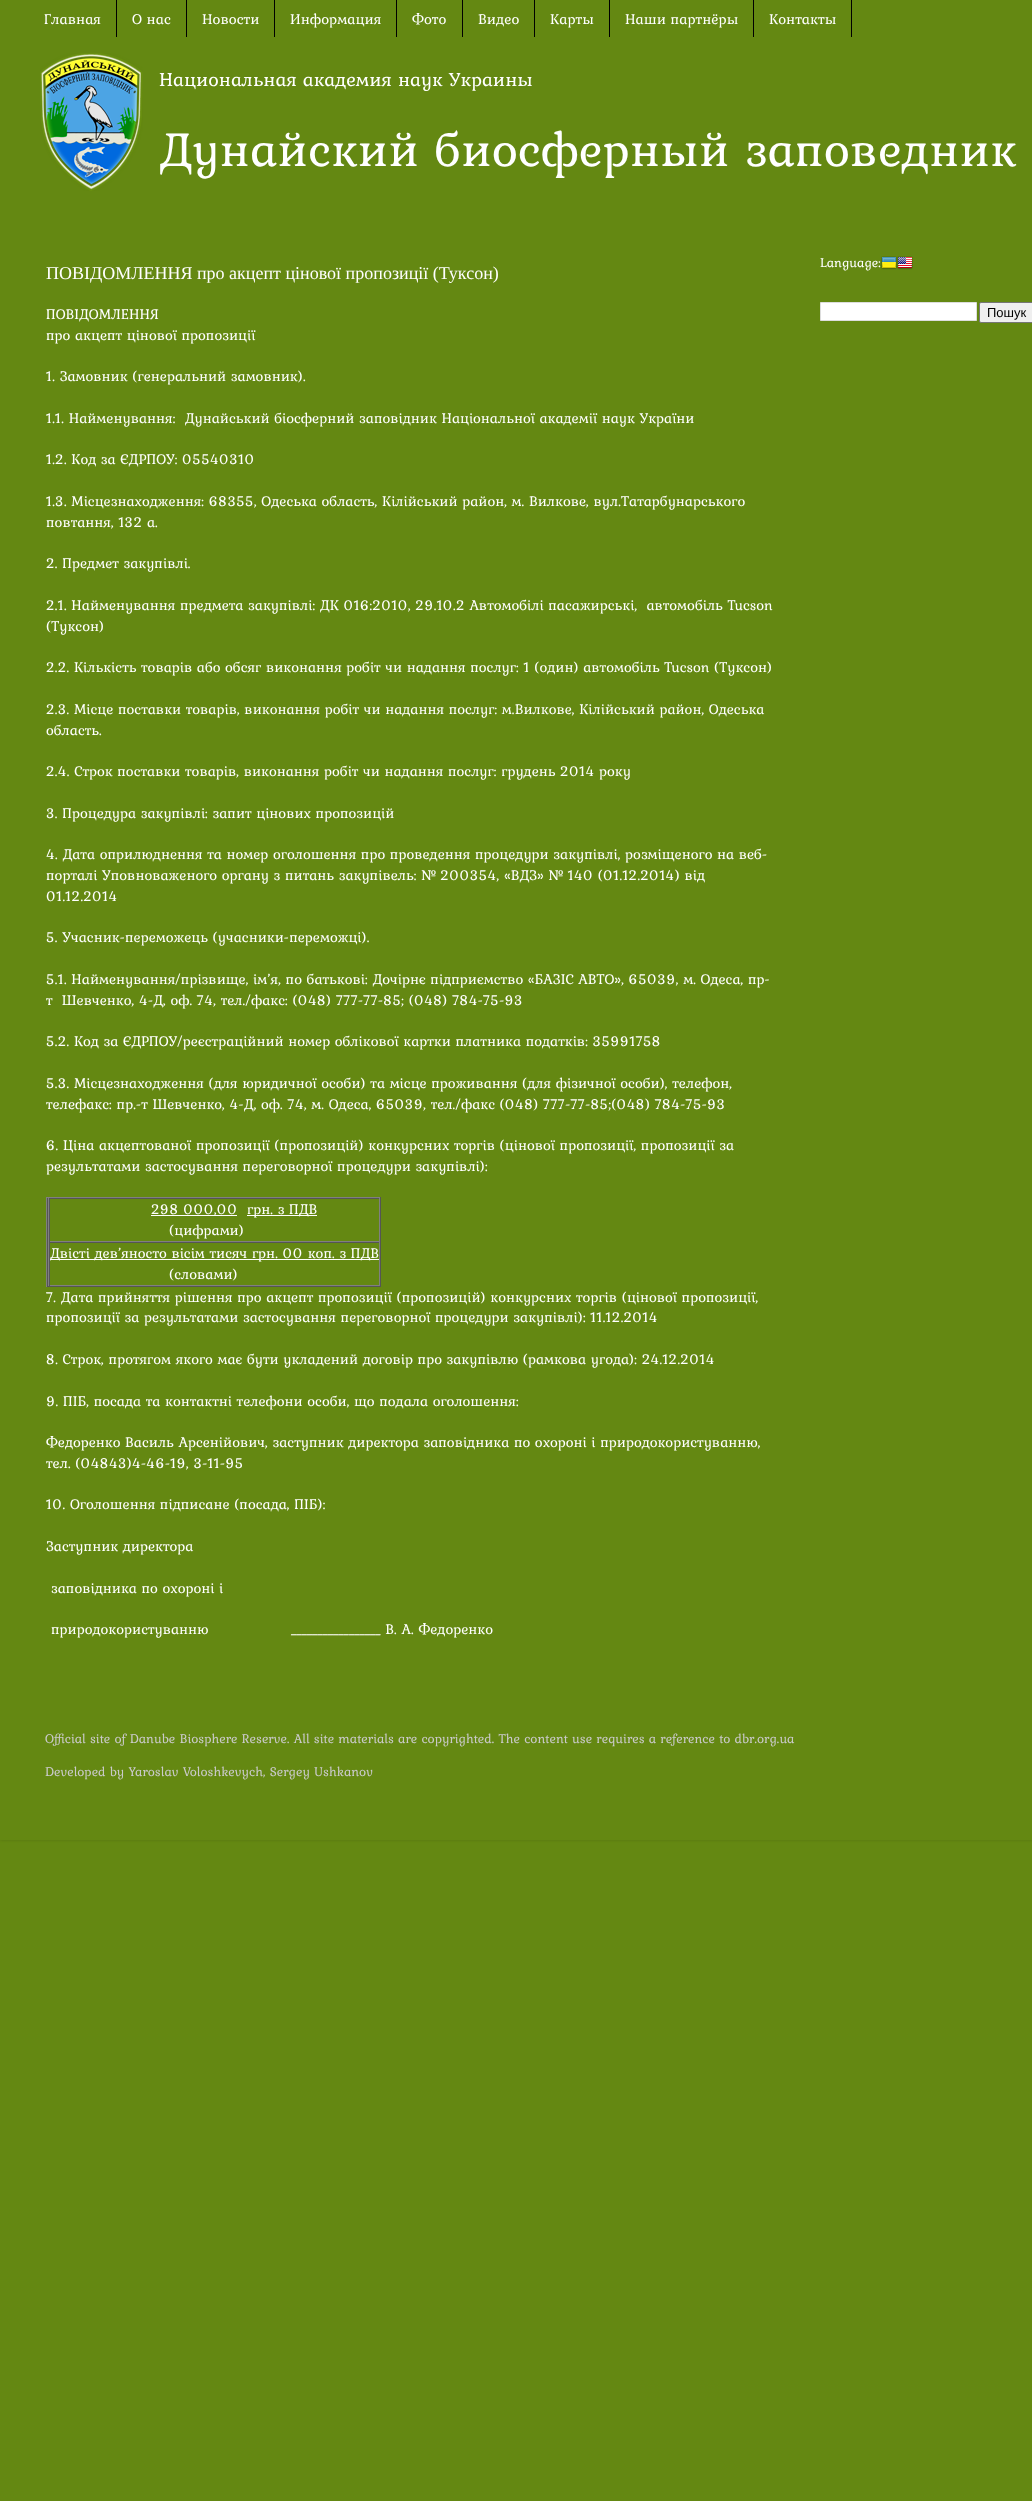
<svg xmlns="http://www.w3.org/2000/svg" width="1032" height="2501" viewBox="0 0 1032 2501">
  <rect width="100%" height="100%" fill="#648812"/>
  <path d="M0 0h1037v1840H0z" fill="#00000026" filter="blur(1.5px)"/>
  <path d="M0 0h1032v1840H0z" fill="#648812"/>
  <path d="M116 0h1v37H116z" fill="#000"/>
  <path d="M186 0h1v37H186z" fill="#000"/>
  <path d="M274 0h1v37H274z" fill="#000"/>
  <path d="M396 0h1v37H396z" fill="#000"/>
  <path d="M462 0h1v37H462z" fill="#000"/>
  <path d="M534 0h1v37H534z" fill="#000"/>
  <path d="M609 0h1v37H609z" fill="#000"/>
  <path d="M753 0h1v37H753z" fill="#000"/>
  <path d="M851 0h1v37H851z" fill="#000"/>
  <image x="40" y="53" width="103" height="138" href="img/1.png"/>
  <path d="M46 1197h335v1H46z" fill="#808080"/>
  <path d="M380 1197h1v90H380z" fill="#555"/>
  <path d="M46 1286h335v1H46z" fill="#555"/>
  <path d="M46 1197h1v90H46z" fill="#808080"/>
  <path d="M48 1198h1v88H48z" fill="#808080"/>
  <path d="M47 1241h2v1H47z" fill="#808080"/>
  <path d="M47 1198h1v44H47z" fill="#555"/>
  <path d="M49 1198h331v1H49z" fill="#555"/>
  <path d="M379 1198h1v44H379z" fill="#808080"/>
  <path d="M49 1241h331v1H49z" fill="#808080"/>
  <path d="M49 1198h1v44H49z" fill="#555"/>
  <path d="M151 1215h86v1H151z" fill="#fff"/>
  <path d="M247 1215h70v1H247z" fill="#fff"/>
  <path d="M47 1285h2v1H47z" fill="#808080"/>
  <path d="M47 1242h1v44H47z" fill="#555"/>
  <path d="M49 1242h331v1H49z" fill="#555"/>
  <path d="M379 1242h1v44H379z" fill="#808080"/>
  <path d="M49 1285h331v1H49z" fill="#808080"/>
  <path d="M49 1242h1v44H49z" fill="#555"/>
  <path d="M50 1259h329v1H50z" fill="#fff"/>
  <image x="881" y="256" width="16" height="14" href="img/2.png"/>
  <image x="897" y="256" width="16" height="14" href="img/3.png"/>
  <path d="M820.5 302.5h156v18H820.5z" fill="#fff" stroke="#ddd"/>
  <rect x="979.5" y="302.5" width="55" height="20" rx="1.5" fill="#efefef" stroke="#767676"/>
  <g font-family="Kurale" font-size="15" fill="#fff">
    <text x="44" y="24">Главная</text>
    <text x="132" y="24">О нас</text>
    <text x="202" y="24">Новости</text>
    <text x="290" y="24">Информация</text>
    <text x="412" y="24">Фото</text>
    <text x="478" y="24">Видео</text>
    <text x="550" y="24">Карты</text>
    <text x="625" y="24">Наши партнёры</text>
    <text x="769" y="24">Контакты</text>
  </g>
  <text x="159" y="86" font-family="Kurale" font-size="20" fill="#fff">Национальная академия наук Украины</text>
  <text x="159" y="166" font-family="Kurale" font-size="50" fill="#fff">Дунайский биосферный заповедник</text>
  <text x="46" y="279" font-family="Liberation Serif" font-size="18" fill="#fff">ПОВІДОМЛЕННЯ про акцепт цінової пропозиції (Туксон)</text>
  <g font-family="Kurale" font-size="14.85" fill="#fff">
    <text x="46" y="319">ПОВІДОМЛЕННЯ</text>
    <text x="46" y="340">про акцепт цінової пропозиції</text>
    <text x="46" y="381">1. Замовник (генеральний замовник).</text>
    <text x="46" y="423" xml:space="preserve">1.1. Найменування:  Дунайський біосферний заповідник Національної академії наук України</text>
    <text x="46" y="464">1.2. Код за ЄДРПОУ: 05540310</text>
    <text x="46" y="506">1.3. Місцезнаходження: 68355, Одеська область, Кілійський район, м. Вилкове, вул.Татарбунарського</text>
    <text x="46" y="527">повтання, 132 а.</text>
    <text x="46" y="568">2. Предмет закупівлі.</text>
    <text x="46" y="610" xml:space="preserve">2.1. Найменування предмета закупівлі: ДК 016:2010, 29.10.2 Автомобілі пасажирські,  автомобіль Tucson</text>
    <text x="46" y="631">(Туксон)</text>
    <text x="46" y="672">2.2. Кількість товарів або обсяг виконання робіт чи надання послуг: 1 (один) автомобіль Tucson (Туксон)</text>
    <text x="46" y="714">2.3. Місце поставки товарів, виконання робіт чи надання послуг: м.Вилкове, Кілійський район, Одеська</text>
    <text x="46" y="735">область.</text>
    <text x="46" y="776">2.4. Строк поставки товарів, виконання робіт чи надання послуг: грудень 2014 року</text>
    <text x="46" y="818">3. Процедура закупівлі: запит цінових пропозицій</text>
    <text x="46" y="859">4. Дата оприлюднення та номер оголошення про проведення процедури закупівлі, розміщеного на веб-</text>
    <text x="46" y="880">порталі Уповноваженого органу з питань закупівель: № 200354, «ВДЗ» № 140 (01.12.2014) від</text>
    <text x="46" y="901">01.12.2014</text>
    <text x="46" y="942">5. Учасник-переможець (учасники-переможці).</text>
    <text x="46" y="984">5.1. Найменування/прізвище, ім’я, по батькові: Дочірнє підприємство «БАЗІС АВТО», 65039, м. Одеса, пр-</text>
    <text x="46" y="1005" xml:space="preserve">т  Шевченко, 4-Д, оф. 74, тел./факс: (048) 777-77-85; (048) 784-75-93</text>
    <text x="46" y="1046">5.2. Код за ЄДРПОУ/реєстраційний номер облікової картки платника податків: 35991758</text>
    <text x="46" y="1088">5.3. Місцезнаходження (для юридичної особи) та місце проживання (для фізичної особи), телефон,</text>
    <text x="46" y="1109">телефакс: пр.-т Шевченко, 4-Д, оф. 74, м. Одеса, 65039, тел./факс (048) 777-77-85;(048) 784-75-93</text>
    <text x="46" y="1150">6. Ціна акцептованої пропозиції (пропозицій) конкурсних торгів (цінової пропозиції, пропозиції за</text>
    <text x="46" y="1171">результатами застосування переговорної процедури закупівлі):</text>
    <text x="151" y="1214">298 000,00</text>
    <text x="247" y="1214">грн. з ПДВ</text>
    <text x="169" y="1235">(цифрами)</text>
    <text x="50" y="1258">Двісті дев’яносто вісім тисяч грн. 00 коп. з ПДВ</text>
    <text x="169" y="1279">(словами)</text>
    <text x="46" y="1302">7. Дата прийняття рішення про акцепт пропозиції (пропозицій) конкурсних торгів (цінової пропозиції,</text>
    <text x="46" y="1322">пропозиції за результатами застосування переговорної процедури закупівлі): 11.12.2014</text>
    <text x="46" y="1364">8. Строк, протягом якого має бути укладений договір про закупівлю (рамкова угода): 24.12.2014</text>
    <text x="46" y="1406">9. ПІБ, посада та контактні телефони особи, що подала оголошення:</text>
    <text x="46" y="1447">Федоренко Василь Арсенійович, заступник директора заповідника по охороні і природокористуванню,</text>
    <text x="46" y="1468">тел. (04843)4-46-19, 3-11-95</text>
    <text x="46" y="1509">10. Оголошення підписане (посада, ПІБ):</text>
    <text x="46" y="1551">Заступник директора</text>
    <text x="51" y="1593">заповідника по охороні і</text>
    <text x="51" y="1634" xml:space="preserve">природокористуванню                  _________________ В. А. Федоренко</text>
  </g>
  <text x="820" y="267" font-family="Kurale" font-size="13.5" fill="#fff">Language:</text>
  <text x="987" y="317" font-family="Liberation Sans" font-size="13" fill="#000">Пошук</text>
  <g font-family="Kurale" font-size="13.5" fill="#cacaca">
    <text x="45" y="1743">Official site of Danube Biosphere Reserve. All site materials are copyrighted. The content use requires a reference to dbr.org.ua</text>
    <text x="45" y="1776">Developed by Yaroslav Voloshkevych, Sergey Ushkanov</text>
  </g>
</svg>
